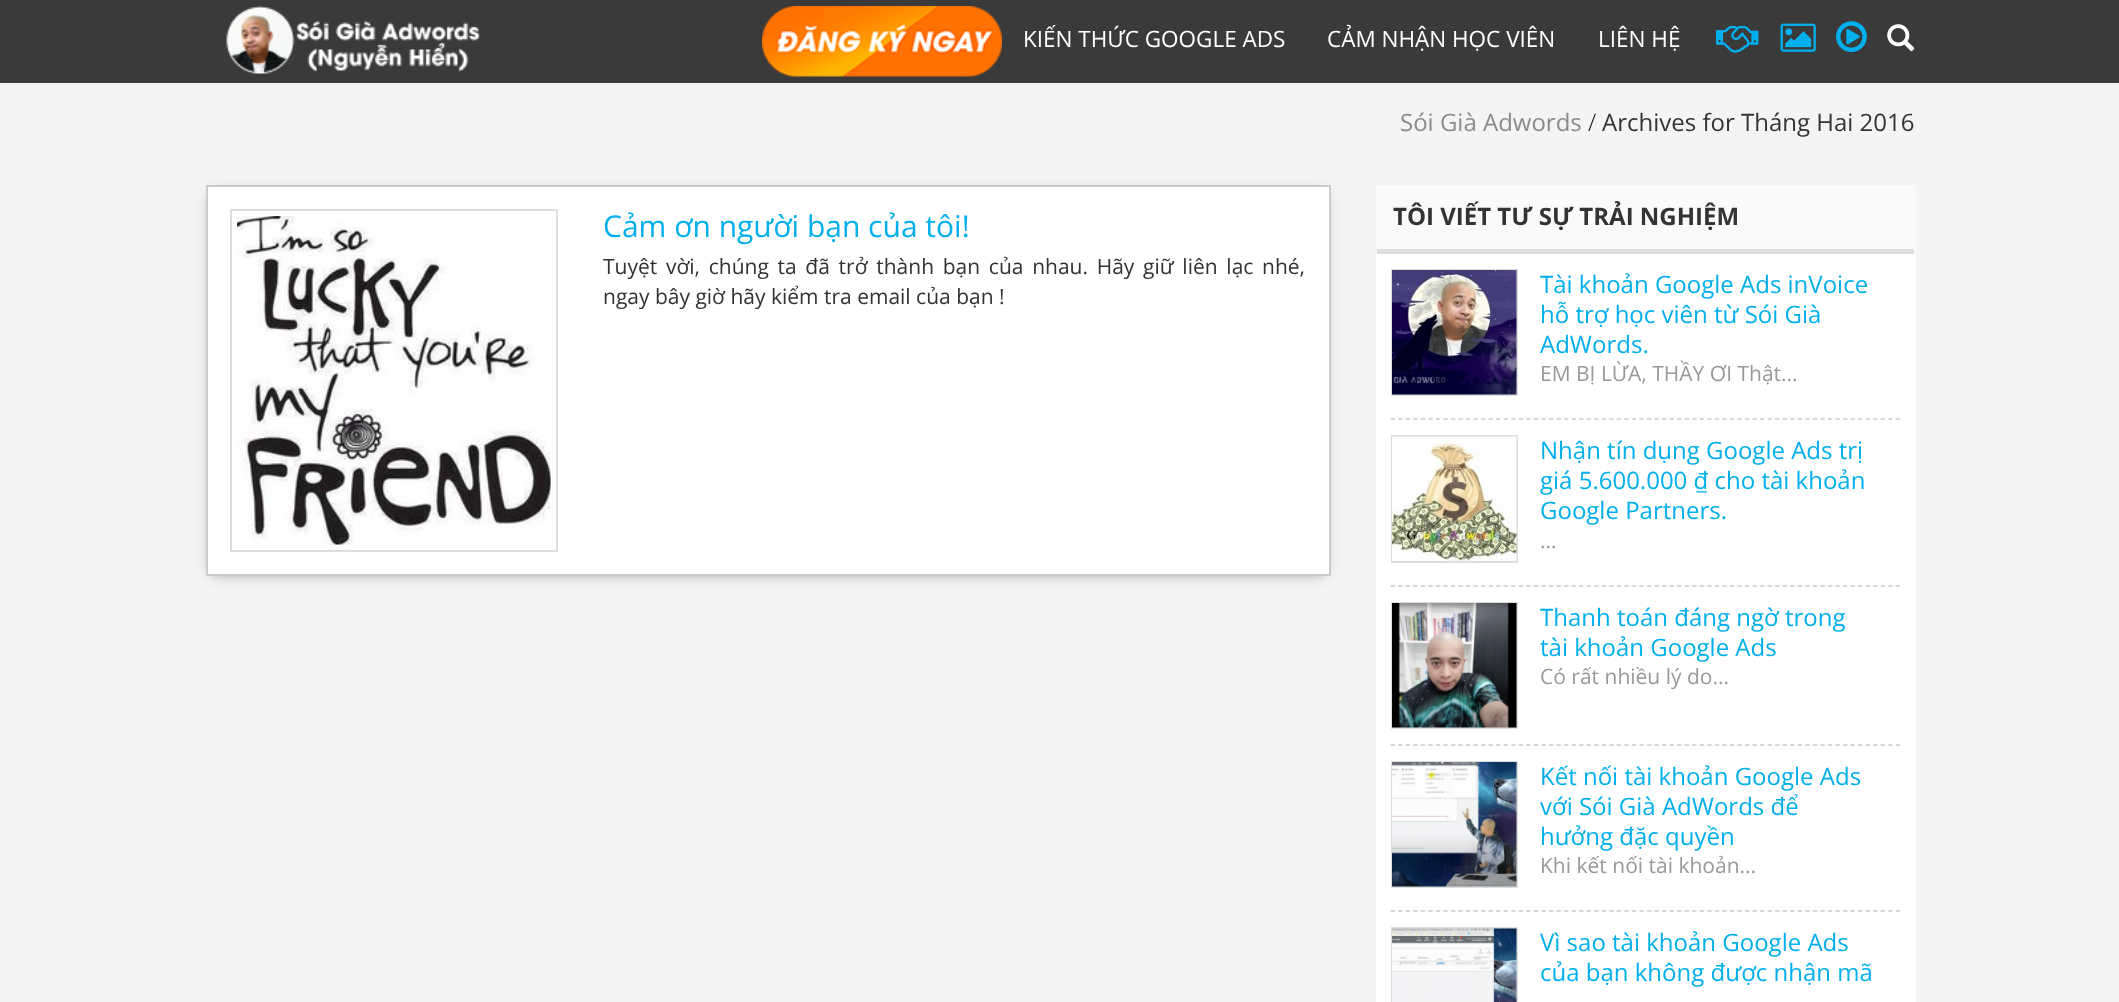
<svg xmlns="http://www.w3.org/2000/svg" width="2119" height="1002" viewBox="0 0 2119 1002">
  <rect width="100%" height="100%" fill="#f4f4f4"/>
  <path d="M0 0h2119v83H0z" fill="#3a3a3a"/>
  <image x="226" y="5" width="255" height="69" href="img/1.png"/>
  <image x="762" y="6" width="240" height="71" href="img/2.png"/>
  <image x="1716" y="25" width="43" height="28" href="img/3.png"/>
  <image x="1780" y="23" width="36" height="29" href="img/4.png"/>
  <image x="1836" y="21" width="31" height="32" href="img/5.png"/>
  <image x="1887" y="24" width="28" height="28" href="img/6.png"/>
  <path d="M213 195h1110v377H213z" fill="#00000080" filter="blur(7.5px)"/>
  <path d="M207 186h1123v389H207z" fill="#fff" stroke="#ccc" stroke-width="2"/>
  <path d="M231 210h326v341H231z" fill="none" stroke="#ddd" stroke-width="2"/>
  <image x="237" y="216" width="314" height="329" href="img/7.png"/>
  <path d="M1376 185h540v817H1376z" fill="#fff"/>
  <rect x="1376" y="185" width="540" height="69" rx="3" fill="#fafafa"/>
  <path d="M1377 249h537v5H1377z" fill="#ddd"/>
  <path d="M1390.5 419H1900.5" fill="none" stroke="#ccc" stroke-width="1.5" stroke-dasharray="4.5 3.04"/>
  <path d="M1392 270h125v125H1392z" fill="none" stroke="#ddd" stroke-width="2"/>
  <image x="1392" y="270" width="125" height="125" href="img/8.png"/>
  <path d="M1390.5 586H1900.5" fill="none" stroke="#ccc" stroke-width="1.5" stroke-dasharray="4.5 3.04"/>
  <path d="M1392 436h125v126H1392z" fill="none" stroke="#ddd" stroke-width="2"/>
  <image x="1392" y="436" width="125" height="125" href="img/9.png"/>
  <path d="M1390.5 745H1900.5" fill="none" stroke="#ccc" stroke-width="1.5" stroke-dasharray="4.5 3.04"/>
  <path d="M1392 603h125v125H1392z" fill="none" stroke="#ddd" stroke-width="2"/>
  <image x="1392" y="603" width="125" height="125" href="img/10.png"/>
  <path d="M1390.5 911H1900.5" fill="none" stroke="#ccc" stroke-width="1.5" stroke-dasharray="4.5 3.04"/>
  <path d="M1392 762h125v125H1392z" fill="none" stroke="#ddd" stroke-width="2"/>
  <image x="1392" y="762" width="125" height="125" href="img/11.png"/>
  <path d="M1392 928h125v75H1392z" fill="none" stroke="#ddd" stroke-width="2"/>
  <image x="1392" y="928" width="125" height="74" href="img/12.png"/>
  <g font-family="Open Sans" font-size="22.5" fill="#fff">
    <text x="1023" y="47">KIẾN THỨC GOOGLE ADS</text>
    <text x="1327" y="47">CẢM NHẬN HỌC VIÊN</text>
    <text x="1598" y="47">LIÊN HỆ</text>
  </g>
  <text x="1400" y="131" font-family="Open Sans" font-size="24" fill="#8b8b8b">Sói Già Adwords</text>
  <text x="1588" y="131" font-family="Open Sans" font-size="24" font-weight="300" fill="#111">/</text>
  <text x="1602" y="131" font-family="Open Sans" font-size="24" fill="#333">Archives for Tháng Hai 2016</text>
  <text x="603" y="237" font-family="Open Sans" font-size="30" fill="#00afec">Cảm ơn người bạn của tôi!</text>
  <g font-family="Open Sans" font-size="21" fill="#333">
    <text x="603" y="274" word-spacing="3.25">Tuyệt vời, chúng ta đã trở thành bạn của nhau. Hãy giữ liên lạc nhé,</text>
    <text x="603" y="304">ngay bây giờ hãy kiểm tra email của bạn !</text>
  </g>
  <text x="1393" y="225" font-family="Open Sans" font-size="24" font-weight="bold" fill="#333">TÔI VIẾT TƯ SỰ TRẢI NGHIỆM</text>
  <g font-family="Open Sans" font-size="24" fill="#00afec">
    <text x="1540" y="293">Tài khoản Google Ads inVoice</text>
    <text x="1540" y="323">hỗ trợ học viên từ Sói Già</text>
    <text x="1540" y="353">AdWords.</text>
  </g>
  <text x="1540" y="381" font-family="Open Sans" font-size="21" fill="#999">EM BỊ LỪA, THẦY ƠI Thật...</text>
  <g font-family="Open Sans" font-size="24" fill="#00afec">
    <text x="1540" y="459">Nhận tín dụng Google Ads trị</text>
    <text x="1540" y="489">giá 5.600.000 ₫ cho tài khoản</text>
    <text x="1540" y="519">Google Partners.</text>
  </g>
  <text x="1540" y="548" font-family="Open Sans" font-size="21" fill="#999">...</text>
  <g font-family="Open Sans" font-size="24" fill="#00afec">
    <text x="1540" y="626">Thanh toán đáng ngờ trong</text>
    <text x="1540" y="656">tài khoản Google Ads</text>
  </g>
  <text x="1540" y="684" font-family="Open Sans" font-size="21" fill="#999">Có rất nhiều lý do...</text>
  <g font-family="Open Sans" font-size="24" fill="#00afec">
    <text x="1540" y="785">Kết nối tài khoản Google Ads</text>
    <text x="1540" y="815">với Sói Già AdWords để</text>
    <text x="1540" y="845">hưởng đặc quyền</text>
  </g>
  <text x="1540" y="873" font-family="Open Sans" font-size="21" fill="#999">Khi kết nối tài khoản...</text>
  <g font-family="Open Sans" font-size="24" fill="#00afec">
    <text x="1540" y="951">Vì sao tài khoản Google Ads</text>
    <text x="1540" y="981">của bạn không được nhận mã</text>
  </g>
</svg>
